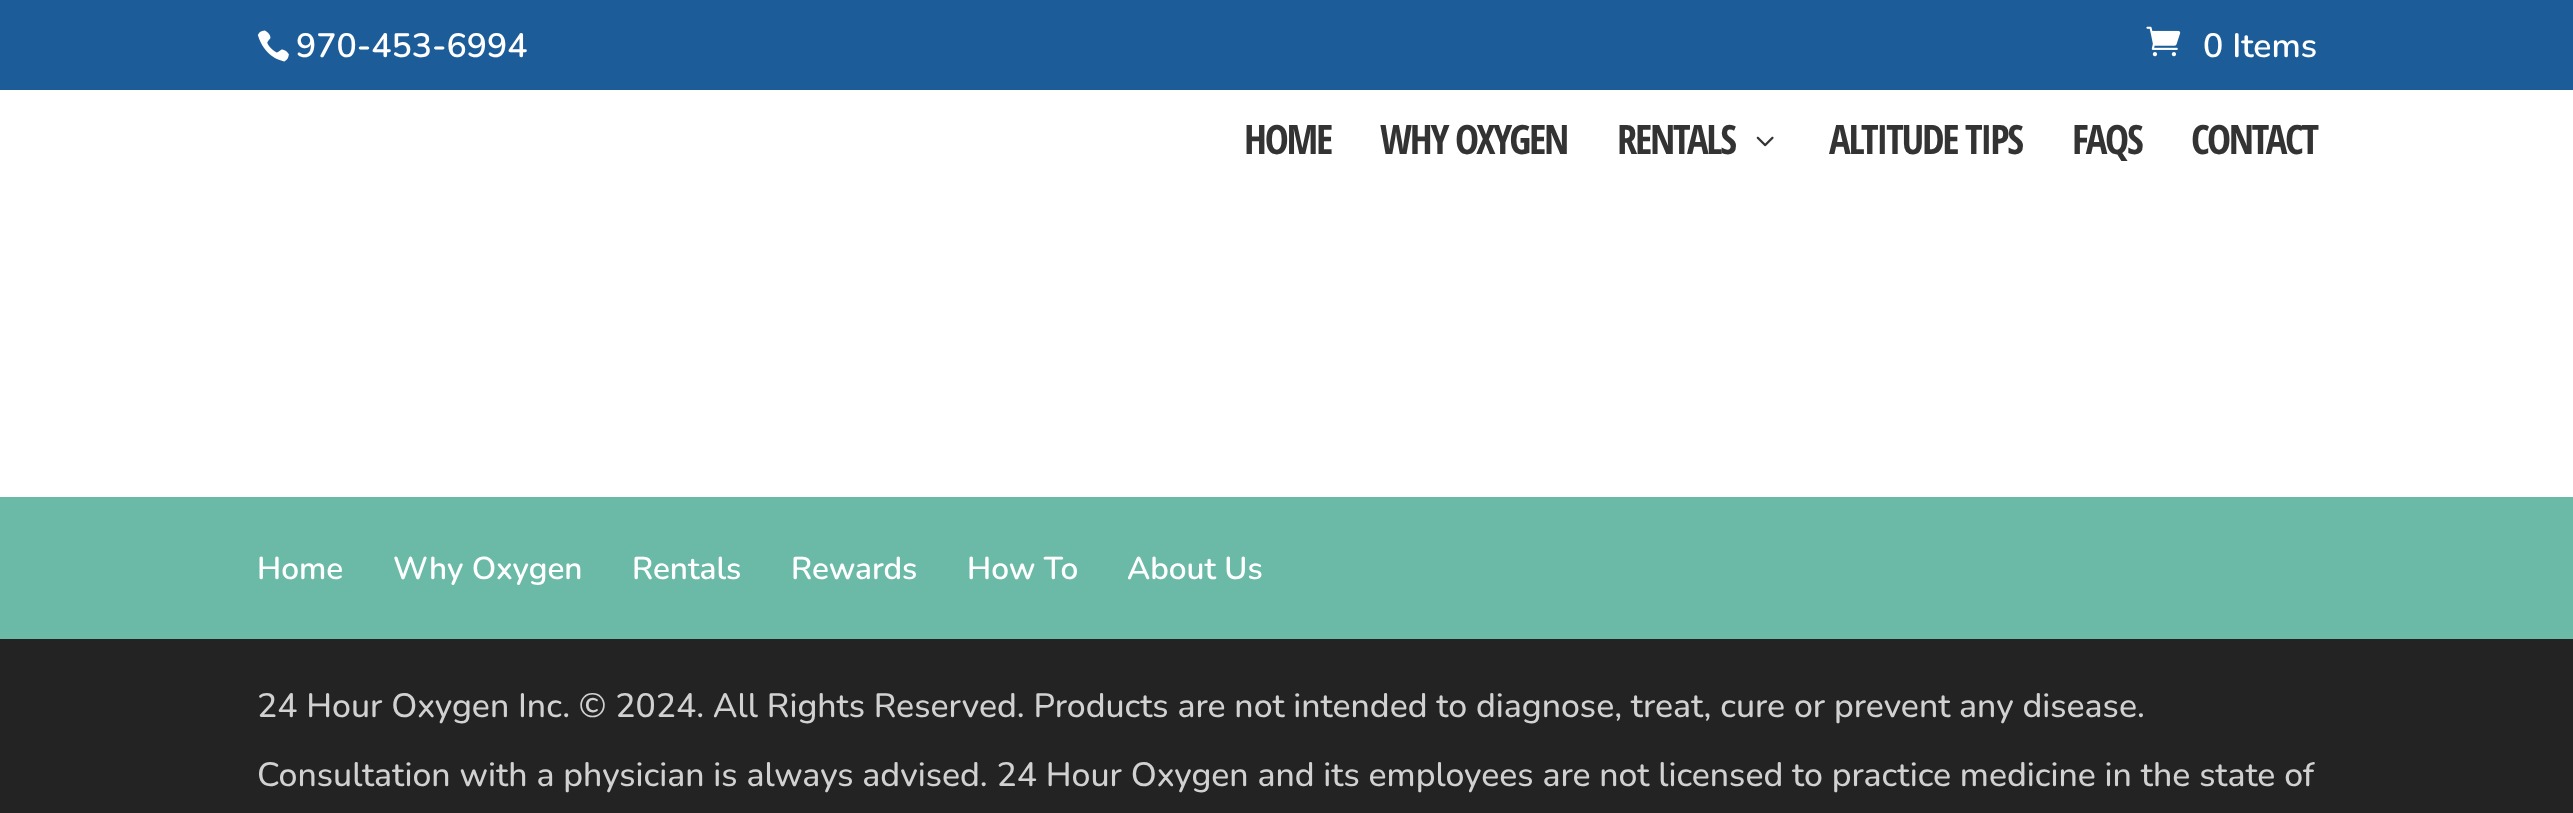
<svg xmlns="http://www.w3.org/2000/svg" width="2573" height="813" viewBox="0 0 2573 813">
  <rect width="100%" height="100%" fill="#fff"/>
  <path d="M0 0h2573v90H0z" fill="#1c5d99"/>
  <image x="257" y="30" width="32" height="32" href="img/1.png"/>
  <image x="2146" y="26" width="35" height="31" href="img/2.png"/>
  <image x="1756" y="136" width="18" height="11" href="img/3.png"/>
  <path d="M0 497h2573v142H0z" fill="#6abaa7"/>
  <path d="M0 639h2573v174H0z" fill="#232323"/>
  <g font-family="Nunito" font-size="33.75" font-weight="600" fill="#fff">
    <text x="296" y="57">970-453-6994</text>
    <text x="2203" y="57">0 Items</text>
  </g>
  <g font-family="Open Sans Condensed" font-size="40.5" font-weight="bold" letter-spacing="-2.25" fill="#333">
    <text x="1244" y="154">HOME</text>
    <text x="1380" y="154">WHY OXYGEN</text>
    <text x="1617" y="154">RENTALS</text>
    <text x="1829" y="154">ALTITUDE TIPS</text>
    <text x="2072" y="154">FAQS</text>
    <text x="2191" y="154">CONTACT</text>
  </g>
  <g font-family="Nunito" font-size="31.5" font-weight="600" fill="#fff">
    <text x="257" y="579">Home</text>
    <text x="393" y="579">Why Oxygen</text>
    <text x="632" y="579">Rentals</text>
    <text x="791" y="579">Rewards</text>
    <text x="967" y="579">How To</text>
    <text x="1127" y="579">About Us</text>
  </g>
  <g font-family="Nunito" font-size="33.75" font-weight="500" fill="#d1d1d1">
    <text x="257" y="717">24 Hour Oxygen Inc. © 2024. All Rights Reserved. Products are not intended to diagnose, treat, cure or prevent any disease.</text>
    <text x="257" y="786">Consultation with a physician is always advised. 24 Hour Oxygen and its employees are not licensed to practice medicine in the state of</text>
  </g>
</svg>
